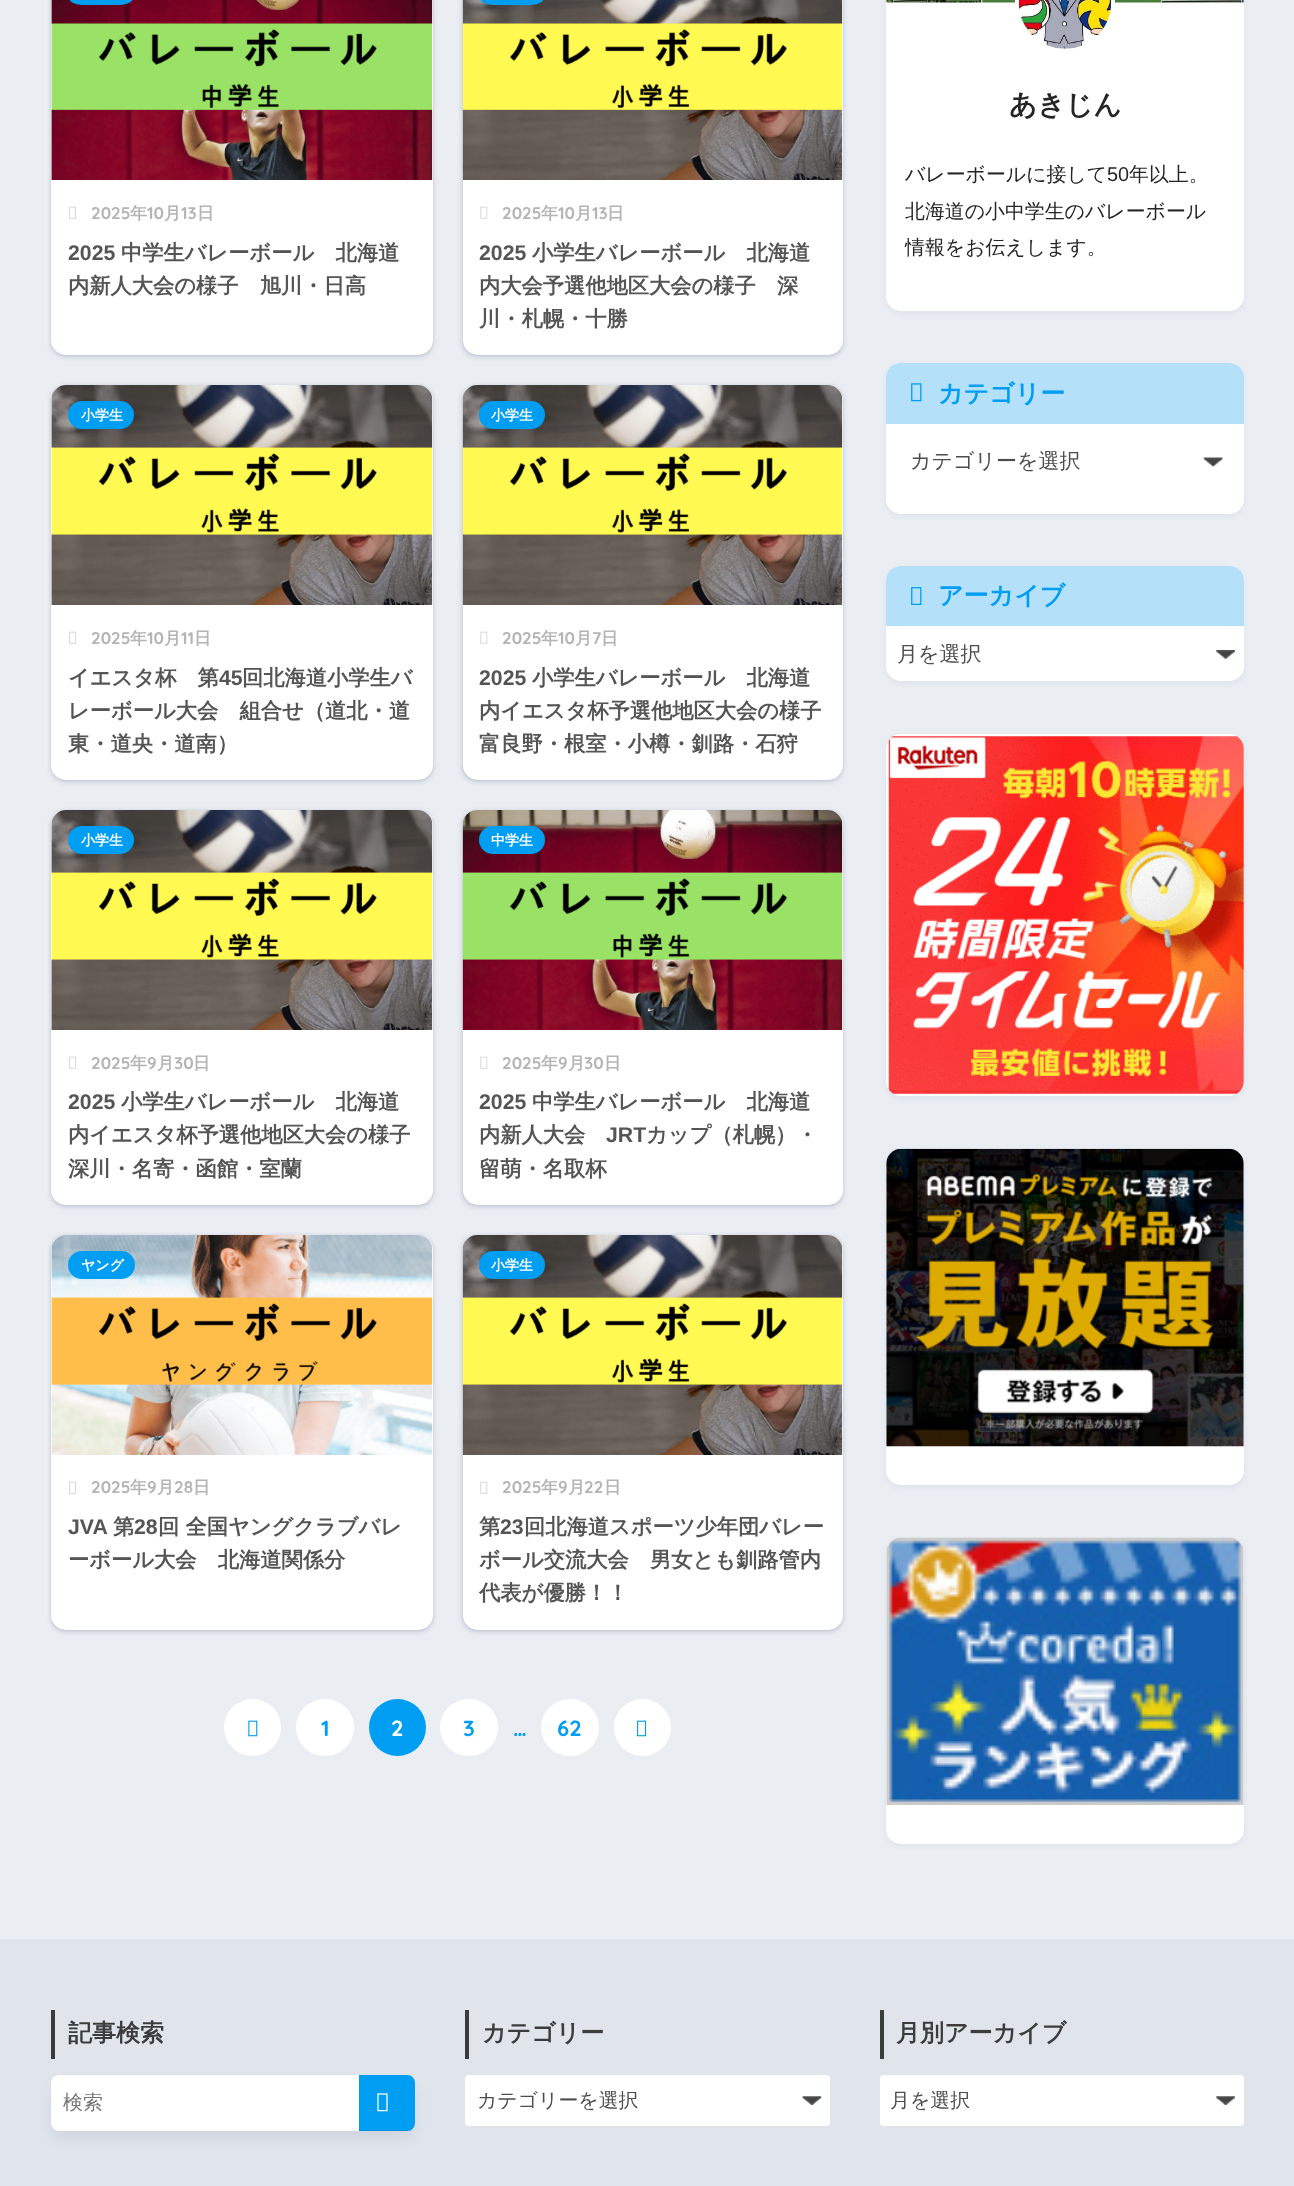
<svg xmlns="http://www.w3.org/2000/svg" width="1294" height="2186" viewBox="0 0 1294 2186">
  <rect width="100%" height="100%" fill="#eaedf2"/>
  <rect x="50" y="-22" width="384" height="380" rx="16" fill="#182c541a" filter="blur(2px)"/>
  <rect x="51" y="-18" width="382" height="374" rx="15" fill="#182c541a" filter="blur(1px)"/>
  <rect x="51" y="-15" width="382" height="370" rx="15" fill="#fff"/>
  <image x="51" y="0" width="382" height="180" href="img/1.png"/>
  <rect x="68" y="-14" width="66" height="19" rx="13.5" fill="#009ef3"/>
  <image x="69" y="206" width="7" height="13" href="img/2.png"/>
  <rect x="461" y="-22" width="383" height="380" rx="16" fill="#182c541a" filter="blur(2px)"/>
  <rect x="463" y="-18" width="380" height="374" rx="15" fill="#182c541a" filter="blur(1px)"/>
  <rect x="463" y="-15" width="380" height="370" rx="15" fill="#fff"/>
  <image x="462" y="0" width="381" height="180" href="img/3.png"/>
  <rect x="479" y="-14" width="66" height="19" rx="13.5" fill="#009ef3"/>
  <image x="480" y="206" width="8" height="13" href="img/4.png"/>
  <rect x="50" y="385" width="384" height="398" rx="16" fill="#182c541a" filter="blur(2px)"/>
  <rect x="51" y="386" width="382" height="395" rx="15" fill="#182c541a" filter="blur(1px)"/>
  <rect x="51" y="385" width="382" height="395" rx="15" fill="#fff"/>
  <image x="51" y="385" width="382" height="220" href="img/5.png"/>
  <rect x="68" y="401" width="66" height="28" rx="14" fill="#009ef3"/>
  <image x="69" y="631" width="7" height="13" href="img/2.png"/>
  <rect x="461" y="385" width="383" height="398" rx="16" fill="#182c541a" filter="blur(2px)"/>
  <rect x="463" y="386" width="380" height="395" rx="15" fill="#182c541a" filter="blur(1px)"/>
  <rect x="463" y="385" width="380" height="395" rx="15" fill="#fff"/>
  <image x="462" y="385" width="381" height="220" href="img/6.png"/>
  <rect x="479" y="401" width="66" height="28" rx="14" fill="#009ef3"/>
  <image x="480" y="631" width="8" height="13" href="img/4.png"/>
  <rect x="50" y="810" width="384" height="398" rx="16" fill="#182c541a" filter="blur(2px)"/>
  <rect x="51" y="811" width="382" height="395" rx="15" fill="#182c541a" filter="blur(1px)"/>
  <rect x="51" y="810" width="382" height="395" rx="15" fill="#fff"/>
  <image x="51" y="810" width="382" height="220" href="img/5.png"/>
  <rect x="68" y="826" width="66" height="28" rx="14" fill="#009ef3"/>
  <image x="69" y="1056" width="7" height="13" href="img/2.png"/>
  <rect x="461" y="810" width="383" height="398" rx="16" fill="#182c541a" filter="blur(2px)"/>
  <rect x="463" y="811" width="380" height="395" rx="15" fill="#182c541a" filter="blur(1px)"/>
  <rect x="463" y="810" width="380" height="395" rx="15" fill="#fff"/>
  <image x="462" y="810" width="381" height="220" href="img/7.png"/>
  <rect x="479" y="826" width="66" height="28" rx="14" fill="#009ef3"/>
  <image x="480" y="1056" width="8" height="13" href="img/4.png"/>
  <rect x="50" y="1235" width="384" height="398" rx="16" fill="#182c541a" filter="blur(2px)"/>
  <rect x="51" y="1236" width="382" height="395" rx="15" fill="#182c541a" filter="blur(1px)"/>
  <rect x="51" y="1235" width="382" height="395" rx="15" fill="#fff"/>
  <image x="51" y="1235" width="382" height="220" href="img/8.png"/>
  <rect x="68" y="1251" width="67" height="28" rx="14" fill="#009ef3"/>
  <image x="69" y="1481" width="7" height="13" href="img/2.png"/>
  <rect x="461" y="1235" width="383" height="398" rx="16" fill="#182c541a" filter="blur(2px)"/>
  <rect x="463" y="1236" width="380" height="395" rx="15" fill="#182c541a" filter="blur(1px)"/>
  <rect x="463" y="1235" width="380" height="395" rx="15" fill="#fff"/>
  <image x="462" y="1235" width="381" height="220" href="img/6.png"/>
  <rect x="479" y="1251" width="66" height="28" rx="14" fill="#009ef3"/>
  <image x="480" y="1481" width="8" height="13" href="img/4.png"/>
  <circle cx="252.5" cy="1727.5" r="28.5" fill="#fff"/>
  <image x="248" y="1720" width="10" height="17" href="img/9.png"/>
  <rect x="296" y="1699" width="58" height="57" rx="28.5" fill="#fff"/>
  <circle cx="397.5" cy="1727.5" r="28.5" fill="#009ef3"/>
  <rect x="440" y="1699" width="58" height="57" rx="28.5" fill="#fff"/>
  <rect x="541" y="1699" width="58" height="57" rx="28.5" fill="#fff"/>
  <circle cx="642.5" cy="1727.5" r="28.5" fill="#fff"/>
  <image x="637" y="1720" width="10" height="17" href="img/10.png"/>
  <rect x="886" y="-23" width="358" height="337" rx="15" fill="#4385bb12" filter="blur(2.5px)"/>
  <rect x="886" y="-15" width="358" height="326" rx="15" fill="#fff"/>
  <image x="886" y="0" width="358" height="3" href="img/12.png"/>
  <circle cx="1065" cy="3" r="48" fill="none" stroke="#fff" stroke-width="4"/>
  <image x="1018" y="0" width="94" height="49" href="img/11.png"/>
  <rect x="886" y="365" width="358" height="151" rx="15" fill="#4385bb12" filter="blur(2.5px)"/>
  <rect x="886" y="363" width="358" height="151" rx="15" fill="#fff"/>
  <path d="M901 363H1229C1237.5 363 1244 369.5 1244 378V424H886V378C886 369.5 892.5 363 901 363Z" fill="#b4e0fa"/>
  <image x="911" y="383" width="11" height="19" href="img/13.png"/>
  <image x="1203" y="457" width="20" height="10" href="img/14.png"/>
  <rect x="886" y="569" width="358" height="115" rx="15" fill="#4385bb12" filter="blur(2.5px)"/>
  <rect x="886" y="566" width="358" height="115" rx="15" fill="#fff"/>
  <path d="M901 566H1229C1237.5 566 1244 572.5 1244 581V626H886V581C886 572.5 892.5 566 901 566Z" fill="#b4e0fa"/>
  <image x="911" y="587" width="11" height="18" href="img/15.png"/>
  <image x="1216" y="650" width="19" height="9" href="img/16.png"/>
  <rect x="886" y="736" width="358" height="363" rx="15" fill="#4385bb12" filter="blur(2.5px)"/>
  <rect x="886" y="734" width="358" height="362" rx="15" fill="#fff"/>
  <image x="888" y="736" width="356" height="358" href="img/17.png"/>
  <rect x="886" y="1151" width="358" height="337" rx="15" fill="#4385bb12" filter="blur(2.5px)"/>
  <rect x="886" y="1149" width="358" height="336" rx="15" fill="#fff"/>
  <image x="886" y="1148" width="358" height="299" href="img/18.png"/>
  <rect x="886" y="1540" width="358" height="306" rx="15" fill="#4385bb12" filter="blur(2.5px)"/>
  <rect x="886" y="1538" width="358" height="306" rx="15" fill="#fff"/>
  <image x="886" y="1537" width="358" height="268" href="img/19.png"/>
  <path d="M0 1939h1294v247H0z" fill="#e0e4eb"/>
  <path d="M51 2010h4v49H51z" fill="#3c3c3c"/>
  <rect x="51" y="2075" width="364" height="56" rx="8" fill="#001e641a" filter="blur(0.5px)"/>
  <rect x="55" y="2086" width="356" height="49" rx="4" fill="#000c421a" filter="blur(8px)"/>
  <rect x="51" y="2075" width="364" height="56" rx="8" fill="#fff"/>
  <path d="M359 2075H407C411.5 2075 415 2078.5 415 2083V2123C415 2127.5 411.5 2131 407 2131H359Z" fill="#009ef3"/>
  <path d="M359 2130h52v1H359z" fill="#0000001a"/>
  <image x="377" y="2093" width="11" height="19" href="img/20.png"/>
  <path d="M465 2010h4v49H465z" fill="#3c3c3c"/>
  <rect x="465" y="2075" width="365" height="51" rx="4" fill="#fff"/>
  <image x="802" y="2096" width="20" height="9" href="img/21.png"/>
  <path d="M880 2010h4v49H880z" fill="#3c3c3c"/>
  <rect x="880" y="2075" width="364" height="51" rx="4" fill="#fff"/>
  <image x="1216" y="2096" width="19" height="9" href="img/22.png"/>
  <text x="91" y="219" font-family="Quicksand" font-size="17" font-weight="bold" fill="#b5b5b5">2025</text>
  <text x="130" y="219" font-family="WenQuanYi Zen Hei" font-size="17" font-weight="bold" fill="#b5b5b5">年</text>
  <text x="147" y="219" font-family="Quicksand" font-size="17" font-weight="bold" fill="#b5b5b5">10</text>
  <text x="164" y="219" font-family="WenQuanYi Zen Hei" font-size="17" font-weight="bold" fill="#b5b5b5">月</text>
  <text x="181" y="219" font-family="Quicksand" font-size="17" font-weight="bold" fill="#b5b5b5">13</text>
  <text x="197" y="219" font-family="WenQuanYi Zen Hei" font-size="17" font-weight="bold" fill="#b5b5b5">日</text>
  <text x="68" y="260" font-family="Liberation Sans" font-size="21.25" font-weight="bold" fill="#555">2025</text>
  <g font-family="WenQuanYi Zen Hei" font-size="21.25" font-weight="bold" fill="#555">
    <text x="121" y="260">中学生バレーボール　北海道</text>
    <text x="68" y="293">内新人大会の様子　旭川・日高</text>
  </g>
  <text x="502" y="219" font-family="Quicksand" font-size="17" font-weight="bold" fill="#b5b5b5">2025</text>
  <text x="541" y="219" font-family="WenQuanYi Zen Hei" font-size="17" font-weight="bold" fill="#b5b5b5">年</text>
  <text x="558" y="219" font-family="Quicksand" font-size="17" font-weight="bold" fill="#b5b5b5">10</text>
  <text x="575" y="219" font-family="WenQuanYi Zen Hei" font-size="17" font-weight="bold" fill="#b5b5b5">月</text>
  <text x="592" y="219" font-family="Quicksand" font-size="17" font-weight="bold" fill="#b5b5b5">13</text>
  <text x="607" y="219" font-family="WenQuanYi Zen Hei" font-size="17" font-weight="bold" fill="#b5b5b5">日</text>
  <text x="479" y="260" font-family="Liberation Sans" font-size="21.25" font-weight="bold" fill="#555">2025</text>
  <g font-family="WenQuanYi Zen Hei" font-size="21.25" font-weight="bold" fill="#555">
    <text x="532" y="260">小学生バレーボール　北海道</text>
    <text x="479" y="293">内大会予選他地区大会の様子　深</text>
    <text x="479" y="326">川・札幌・十勝</text>
  </g>
  <text x="81" y="420" font-family="WenQuanYi Zen Hei" font-size="14" font-weight="bold" fill="#fff">小学生</text>
  <text x="91" y="644" font-family="Quicksand" font-size="17" font-weight="bold" fill="#b5b5b5">2025</text>
  <text x="130" y="644" font-family="WenQuanYi Zen Hei" font-size="17" font-weight="bold" fill="#b5b5b5">年</text>
  <text x="147" y="644" font-family="Quicksand" font-size="17" font-weight="bold" fill="#b5b5b5">10</text>
  <text x="164" y="644" font-family="WenQuanYi Zen Hei" font-size="17" font-weight="bold" fill="#b5b5b5">月</text>
  <text x="181" y="644" font-family="Quicksand" font-size="17" font-weight="bold" fill="#b5b5b5">11</text>
  <text x="194" y="644" font-family="WenQuanYi Zen Hei" font-size="17" font-weight="bold" fill="#b5b5b5">日</text>
  <text x="68" y="685" font-family="WenQuanYi Zen Hei" font-size="21.25" font-weight="bold" fill="#555">イエスタ杯　第</text>
  <text x="219" y="685" font-family="Liberation Sans" font-size="21.25" font-weight="bold" fill="#555">45</text>
  <g font-family="WenQuanYi Zen Hei" font-size="21.25" font-weight="bold" fill="#555">
    <text x="242" y="685">回北海道小学生バ</text>
    <text x="68" y="718">レーボール大会　組合せ（道北・道</text>
    <text x="68" y="751">東・道央・道南）</text>
  </g>
  <text x="491" y="420" font-family="WenQuanYi Zen Hei" font-size="14" font-weight="bold" fill="#fff">小学生</text>
  <text x="502" y="644" font-family="Quicksand" font-size="17" font-weight="bold" fill="#b5b5b5">2025</text>
  <text x="541" y="644" font-family="WenQuanYi Zen Hei" font-size="17" font-weight="bold" fill="#b5b5b5">年</text>
  <text x="558" y="644" font-family="Quicksand" font-size="17" font-weight="bold" fill="#b5b5b5">10</text>
  <text x="575" y="644" font-family="WenQuanYi Zen Hei" font-size="17" font-weight="bold" fill="#b5b5b5">月</text>
  <text x="592" y="644" font-family="Quicksand" font-size="17" font-weight="bold" fill="#b5b5b5">7</text>
  <text x="601" y="644" font-family="WenQuanYi Zen Hei" font-size="17" font-weight="bold" fill="#b5b5b5">日</text>
  <text x="479" y="685" font-family="Liberation Sans" font-size="21.25" font-weight="bold" fill="#555">2025</text>
  <g font-family="WenQuanYi Zen Hei" font-size="21.25" font-weight="bold" fill="#555">
    <text x="532" y="685">小学生バレーボール　北海道</text>
    <text x="479" y="718">内イエスタ杯予選他地区大会の様子</text>
    <text x="479" y="751">富良野・根室・小樽・釧路・石狩</text>
  </g>
  <text x="81" y="845" font-family="WenQuanYi Zen Hei" font-size="14" font-weight="bold" fill="#fff">小学生</text>
  <text x="91" y="1069" font-family="Quicksand" font-size="17" font-weight="bold" fill="#b5b5b5">2025</text>
  <text x="130" y="1069" font-family="WenQuanYi Zen Hei" font-size="17" font-weight="bold" fill="#b5b5b5">年</text>
  <text x="147" y="1069" font-family="Quicksand" font-size="17" font-weight="bold" fill="#b5b5b5">9</text>
  <text x="157" y="1069" font-family="WenQuanYi Zen Hei" font-size="17" font-weight="bold" fill="#b5b5b5">月</text>
  <text x="174" y="1069" font-family="Quicksand" font-size="17" font-weight="bold" fill="#b5b5b5">30</text>
  <text x="193" y="1069" font-family="WenQuanYi Zen Hei" font-size="17" font-weight="bold" fill="#b5b5b5">日</text>
  <text x="68" y="1109" font-family="Liberation Sans" font-size="21.25" font-weight="bold" fill="#555">2025</text>
  <g font-family="WenQuanYi Zen Hei" font-size="21.25" font-weight="bold" fill="#555">
    <text x="121" y="1109">小学生バレーボール　北海道</text>
    <text x="68" y="1142">内イエスタ杯予選他地区大会の様子</text>
    <text x="68" y="1176">深川・名寄・函館・室蘭</text>
  </g>
  <text x="491" y="845" font-family="WenQuanYi Zen Hei" font-size="14" font-weight="bold" fill="#fff">中学生</text>
  <text x="502" y="1069" font-family="Quicksand" font-size="17" font-weight="bold" fill="#b5b5b5">2025</text>
  <text x="541" y="1069" font-family="WenQuanYi Zen Hei" font-size="17" font-weight="bold" fill="#b5b5b5">年</text>
  <text x="558" y="1069" font-family="Quicksand" font-size="17" font-weight="bold" fill="#b5b5b5">9</text>
  <text x="568" y="1069" font-family="WenQuanYi Zen Hei" font-size="17" font-weight="bold" fill="#b5b5b5">月</text>
  <text x="584" y="1069" font-family="Quicksand" font-size="17" font-weight="bold" fill="#b5b5b5">30</text>
  <text x="604" y="1069" font-family="WenQuanYi Zen Hei" font-size="17" font-weight="bold" fill="#b5b5b5">日</text>
  <text x="479" y="1109" font-family="Liberation Sans" font-size="21.25" font-weight="bold" fill="#555">2025</text>
  <g font-family="WenQuanYi Zen Hei" font-size="21.25" font-weight="bold" fill="#555">
    <text x="532" y="1109">中学生バレーボール　北海道</text>
    <text x="479" y="1142">内新人大会</text>
  </g>
  <text x="606" y="1142" font-family="Liberation Sans" font-size="21.25" font-weight="bold" fill="#555">JRT</text>
  <g font-family="WenQuanYi Zen Hei" font-size="21.25" font-weight="bold" fill="#555">
    <text x="646" y="1142">カップ（札幌）・</text>
    <text x="479" y="1176">留萌・名取杯</text>
  </g>
  <text x="81" y="1270" font-family="WenQuanYi Zen Hei" font-size="14" font-weight="bold" fill="#fff">ヤング</text>
  <text x="91" y="1493" font-family="Quicksand" font-size="17" font-weight="bold" fill="#b5b5b5">2025</text>
  <text x="130" y="1493" font-family="WenQuanYi Zen Hei" font-size="17" font-weight="bold" fill="#b5b5b5">年</text>
  <text x="147" y="1493" font-family="Quicksand" font-size="17" font-weight="bold" fill="#b5b5b5">9</text>
  <text x="157" y="1493" font-family="WenQuanYi Zen Hei" font-size="17" font-weight="bold" fill="#b5b5b5">月</text>
  <text x="174" y="1493" font-family="Quicksand" font-size="17" font-weight="bold" fill="#b5b5b5">28</text>
  <text x="193" y="1493" font-family="WenQuanYi Zen Hei" font-size="17" font-weight="bold" fill="#b5b5b5">日</text>
  <text x="68" y="1534" font-family="Liberation Sans" font-size="21.25" font-weight="bold" fill="#555">JVA</text>
  <text x="113" y="1534" font-family="WenQuanYi Zen Hei" font-size="21.25" font-weight="bold" fill="#555">第</text>
  <text x="134" y="1534" font-family="Liberation Sans" font-size="21.25" font-weight="bold" fill="#555">28</text>
  <g font-family="WenQuanYi Zen Hei" font-size="21.25" font-weight="bold" fill="#555">
    <text x="158" y="1534">回 全国ヤングクラブバレ</text>
    <text x="68" y="1567">ーボール大会　北海道関係分</text>
  </g>
  <text x="491" y="1270" font-family="WenQuanYi Zen Hei" font-size="14" font-weight="bold" fill="#fff">小学生</text>
  <text x="502" y="1493" font-family="Quicksand" font-size="17" font-weight="bold" fill="#b5b5b5">2025</text>
  <text x="541" y="1493" font-family="WenQuanYi Zen Hei" font-size="17" font-weight="bold" fill="#b5b5b5">年</text>
  <text x="558" y="1493" font-family="Quicksand" font-size="17" font-weight="bold" fill="#b5b5b5">9</text>
  <text x="568" y="1493" font-family="WenQuanYi Zen Hei" font-size="17" font-weight="bold" fill="#b5b5b5">月</text>
  <text x="584" y="1493" font-family="Quicksand" font-size="17" font-weight="bold" fill="#b5b5b5">22</text>
  <text x="604" y="1493" font-family="WenQuanYi Zen Hei" font-size="17" font-weight="bold" fill="#b5b5b5">日</text>
  <text x="479" y="1534" font-family="WenQuanYi Zen Hei" font-size="21.25" font-weight="bold" fill="#555">第</text>
  <text x="500" y="1534" font-family="Liberation Sans" font-size="21.25" font-weight="bold" fill="#555">23</text>
  <g font-family="WenQuanYi Zen Hei" font-size="21.25" font-weight="bold" fill="#555">
    <text x="524" y="1534">回北海道スポーツ少年団バレー</text>
    <text x="479" y="1567">ボール交流大会　男女とも釧路管内</text>
    <text x="479" y="1600">代表が優勝！！</text>
  </g>
  <text x="321" y="1736" font-family="Quicksand" font-size="22" font-weight="bold" fill="#009ef3">1</text>
  <text x="391" y="1736" font-family="Quicksand" font-size="22" font-weight="bold" fill="#fff">2</text>
  <g font-family="Quicksand" font-size="22" font-weight="bold" fill="#009ef3">
    <text x="463" y="1736">3</text>
    <text x="513" y="1736">…</text>
    <text x="557" y="1736">62</text>
  </g>
  <text x="1009" y="114" font-family="WenQuanYi Zen Hei" font-size="27.5" font-weight="bold" fill="#252525">あきじん</text>
  <text x="905" y="181" font-family="WenQuanYi Zen Hei" font-size="19.9" font-weight="500" fill="#252525">バレーボールに接して</text>
  <text x="1107" y="181" font-family="Liberation Sans" font-size="19.9" fill="#252525">50</text>
  <g font-family="WenQuanYi Zen Hei" font-size="19.9" font-weight="500" fill="#252525">
    <text x="1129" y="181">年以上。</text>
    <text x="905" y="218">北海道の小中学生のバレーボール</text>
    <text x="905" y="254">情報をお伝えします。</text>
  </g>
  <text x="938" y="402" font-family="WenQuanYi Zen Hei" font-size="25" font-weight="bold" fill="#009ef3">カテゴリー</text>
  <text x="910" y="468" font-family="WenQuanYi Zen Hei" font-size="21" font-weight="500" fill="#4d4d4d">カテゴリーを選択</text>
  <text x="938" y="604" font-family="WenQuanYi Zen Hei" font-size="25" font-weight="bold" fill="#009ef3">アーカイブ</text>
  <text x="897" y="661" font-family="WenQuanYi Zen Hei" font-size="21" font-weight="500" fill="#4d4d4d">月を選択</text>
  <text x="68" y="2041" font-family="WenQuanYi Zen Hei" font-size="24" font-weight="bold" fill="#3c3c3c">記事検索</text>
  <text x="63" y="2109" font-family="WenQuanYi Zen Hei" font-size="19.9" font-weight="500" fill="#757575">検索</text>
  <text x="482" y="2041" font-family="WenQuanYi Zen Hei" font-size="24" font-weight="bold" fill="#3c3c3c">カテゴリー</text>
  <text x="477" y="2107" font-family="WenQuanYi Zen Hei" font-size="19.9" font-weight="500" fill="#4d4d4d">カテゴリーを選択</text>
  <text x="896" y="2041" font-family="WenQuanYi Zen Hei" font-size="24" font-weight="bold" fill="#3c3c3c">月別アーカイブ</text>
  <text x="890" y="2107" font-family="WenQuanYi Zen Hei" font-size="19.9" font-weight="500" fill="#4d4d4d">月を選択</text>
</svg>
